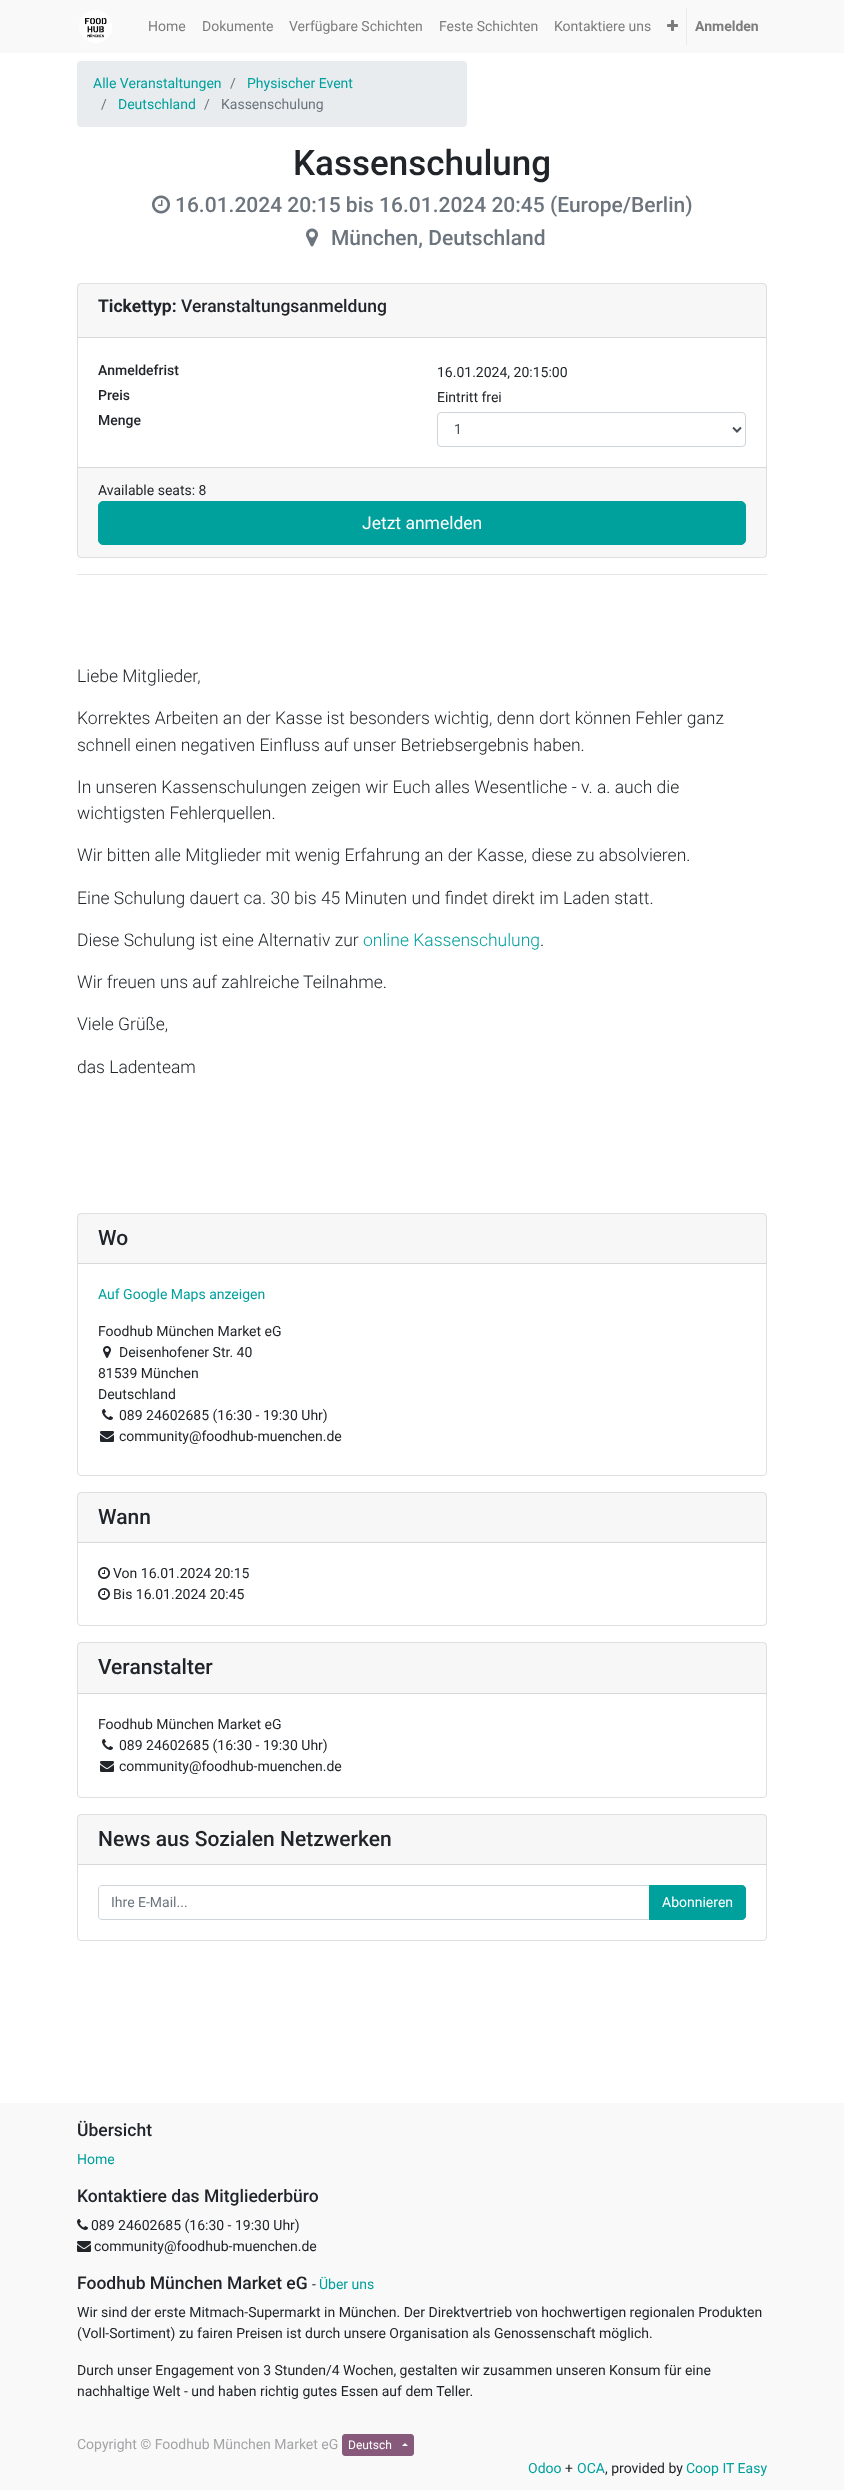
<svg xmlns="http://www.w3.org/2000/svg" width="844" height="2490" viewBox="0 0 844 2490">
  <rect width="100%" height="100%" fill="#fff"/>
  <path d="M0 0h844v53H0z" fill="#f9f9f9"/>
  <image x="79" y="10" width="33" height="33" href="img/1.png"/>
  <image x="667" y="20" width="11" height="11" href="img/2.png"/>
  <path d="M686 8h1v37H686z" fill="#e9ecef"/>
  <rect x="77" y="61" width="390" height="66" rx="4" fill="#e9ecef"/>
  <image x="152" y="195" width="18" height="19" href="img/3.png"/>
  <image x="306" y="228" width="12" height="19" href="img/4.png"/>
  <rect x="77.5" y="283.5" width="689" height="274" rx="3.5" fill="none" stroke="#dfdfdf"/>
  <path d="M78 284h688v53H78z" fill="#00000008"/>
  <path d="M78 337h688v1H78z" fill="#d8d8d8"/>
  <rect x="437.5" y="412.5" width="308" height="34" rx="3.5" fill="none" stroke="#ced4da"/>
  <path d="M733 427.5L737 431.5L741 427.5" fill="none" stroke="#495057" stroke-width="2"/>
  <path d="M78 468h688v89H78z" fill="#00000008"/>
  <path d="M78 467h688v1H78z" fill="#d8d8d8"/>
  <rect x="98.5" y="501.5" width="647" height="43" rx="4.5" fill="#00a09d" stroke="#00a09d"/>
  <path d="M77 574h690v1H77z" fill="#e6e6e6"/>
  <rect x="77.5" y="1213.5" width="689" height="262" rx="3.5" fill="none" stroke="#dfdfdf"/>
  <path d="M78 1214h688v49H78z" fill="#00000008"/>
  <path d="M78 1263h688v1H78z" fill="#d8d8d8"/>
  <image x="103" y="1346" width="8" height="12" href="img/5.png"/>
  <image x="102" y="1409" width="11" height="11" href="img/6.png"/>
  <image x="100" y="1431" width="14" height="11" href="img/7.png"/>
  <rect x="77.5" y="1492.5" width="689" height="133" rx="3.5" fill="none" stroke="#dfdfdf"/>
  <path d="M78 1493h688v49H78z" fill="#00000008"/>
  <path d="M78 1542h688v1H78z" fill="#d8d8d8"/>
  <image x="98" y="1567" width="12" height="12" href="img/8.png"/>
  <image x="98" y="1588" width="12" height="12" href="img/8.png"/>
  <rect x="77.5" y="1642.5" width="689" height="155" rx="3.5" fill="none" stroke="#dfdfdf"/>
  <path d="M78 1643h688v50H78z" fill="#00000008"/>
  <path d="M78 1693h688v1H78z" fill="#d8d8d8"/>
  <image x="102" y="1739" width="11" height="11" href="img/6.png"/>
  <image x="100" y="1761" width="14" height="11" href="img/7.png"/>
  <rect x="77.5" y="1814.5" width="689" height="126" rx="3.5" fill="none" stroke="#dfdfdf"/>
  <path d="M78 1815h688v49H78z" fill="#00000008"/>
  <path d="M78 1864h688v1H78z" fill="#d8d8d8"/>
  <path d="M102 1885.5H650.5V1919.5H102C100 1919.5 98.5 1918 98.5 1916V1889C98.5 1887 100 1885.5 102 1885.5Z" fill="none" stroke="#ced4da"/>
  <path d="M649.5 1885.5H742C744 1885.5 745.5 1887 745.5 1889V1916C745.5 1918 744 1919.5 742 1919.5H649.5Z" fill="#00a09d" stroke="#00a09d"/>
  <path d="M0 2103h844v387H0z" fill="#f9f9f9"/>
  <image x="77" y="2219" width="11" height="11" href="img/9.png"/>
  <image x="77" y="2241" width="14" height="11" href="img/10.png"/>
  <rect x="342.5" y="2434.5" width="71" height="21" rx="2.5" fill="#875a7b" stroke="#875a7b"/>
  <path d="M408 2446H402L405 2443Z" fill="#fff"/>
  <g font-family="Roboto" font-size="14" fill="#7d7d7d">
    <text x="148" y="31">Home</text>
    <text x="202" y="31">Dokumente</text>
    <text x="289" y="31">Verfügbare Schichten</text>
    <text x="439" y="31">Feste Schichten</text>
    <text x="554" y="31">Kontaktiere uns</text>
  </g>
  <text x="695" y="31" font-family="Roboto" font-size="14" font-weight="bold" fill="#7d7d7d">Anmelden</text>
  <text x="93" y="88" font-family="Roboto" font-size="14" fill="#00a09d">Alle Veranstaltungen</text>
  <text x="230" y="88" font-family="Roboto" font-size="14" fill="#6c757d">/</text>
  <text x="247" y="88" font-family="Roboto" font-size="14" fill="#00a09d">Physischer Event</text>
  <text x="101" y="109" font-family="Roboto" font-size="14" fill="#6c757d">/</text>
  <text x="118" y="109" font-family="Roboto" font-size="14" fill="#00a09d">Deutschland</text>
  <g font-family="Roboto" font-size="14" fill="#6c757d">
    <text x="204" y="109">/</text>
    <text x="221" y="109">Kassenschulung</text>
  </g>
  <text x="293" y="175" font-family="Roboto" font-size="35" font-weight="500" fill="#212529">Kassenschulung</text>
  <g font-family="Roboto" font-size="21" font-weight="500" fill="#6c757d">
    <text x="175" y="212">16.01.2024 20:15 bis 16.01.2024 20:45 (Europe/Berlin)</text>
    <text x="331" y="245">München, Deutschland</text>
  </g>
  <text x="98" y="312" font-family="Roboto" font-size="17.5" font-weight="bold" fill="#212529">Tickettyp:</text>
  <text x="181" y="312" font-family="Roboto" font-size="17.5" font-weight="500" fill="#212529">Veranstaltungsanmeldung</text>
  <text x="98" y="375" font-family="Roboto" font-size="14" font-weight="500" fill="#212529">Anmeldefrist</text>
  <text x="437" y="377" font-family="Roboto" font-size="14" fill="#212529">16.01.2024, 20:15:00</text>
  <text x="98" y="400" font-family="Roboto" font-size="14" font-weight="500" fill="#212529">Preis</text>
  <text x="437" y="402" font-family="Roboto" font-size="14" fill="#212529">Eintritt frei</text>
  <text x="98" y="425" font-family="Roboto" font-size="14" font-weight="500" fill="#212529">Menge</text>
  <text x="454" y="434" font-family="Roboto" font-size="14" fill="#495057">1</text>
  <text x="98" y="495" font-family="Roboto" font-size="14" fill="#212529">Available seats: 8</text>
  <text x="362" y="529" font-family="Roboto" font-size="17.5" fill="#fff">Jetzt anmelden</text>
  <g font-family="Roboto" font-size="17.5" font-weight="300" fill="#212529">
    <text x="77" y="682">Liebe Mitglieder,</text>
    <text x="77" y="724">Korrektes Arbeiten an der Kasse ist besonders wichtig, denn dort können Fehler ganz</text>
    <text x="77" y="751">schnell einen negativen Einfluss auf unser Betriebsergebnis haben.</text>
    <text x="77" y="793">In unseren Kassenschulungen zeigen wir Euch alles Wesentliche - v. a. auch die</text>
    <text x="77" y="819">wichtigsten Fehlerquellen.</text>
    <text x="77" y="861">Wir bitten alle Mitglieder mit wenig Erfahrung an der Kasse, diese zu absolvieren.</text>
    <text x="77" y="904">Eine Schulung dauert ca. 30 bis 45 Minuten und findet direkt im Laden statt.</text>
    <text x="77" y="946">Diese Schulung ist eine Alternativ zur</text>
  </g>
  <text x="363" y="946" font-family="Roboto" font-size="17.5" font-weight="300" fill="#00a09d">online Kassenschulung</text>
  <g font-family="Roboto" font-size="17.5" font-weight="300" fill="#212529">
    <text x="540" y="946">.</text>
    <text x="77" y="988">Wir freuen uns auf zahlreiche Teilnahme.</text>
    <text x="77" y="1030">Viele Grüße,</text>
    <text x="77" y="1073">das Ladenteam</text>
  </g>
  <text x="98" y="1245" font-family="Roboto" font-size="21" font-weight="500" fill="#212529">Wo</text>
  <text x="98" y="1299" font-family="Roboto" font-size="14" fill="#00a09d">Auf Google Maps anzeigen</text>
  <g font-family="Roboto" font-size="14" fill="#212529">
    <text x="98" y="1336">Foodhub München Market eG</text>
    <text x="119" y="1357">Deisenhofener Str. 40</text>
    <text x="98" y="1378">81539 München</text>
    <text x="98" y="1399">Deutschland</text>
    <text x="119" y="1420">089 24602685 (16:30 - 19:30 Uhr)</text>
    <text x="119" y="1441">community@foodhub-muenchen.de</text>
  </g>
  <text x="98" y="1524" font-family="Roboto" font-size="21" font-weight="500" fill="#212529">Wann</text>
  <g font-family="Roboto" font-size="14" fill="#212529">
    <text x="113" y="1578">Von 16.01.2024 20:15</text>
    <text x="113" y="1599">Bis 16.01.2024 20:45</text>
  </g>
  <text x="98" y="1674" font-family="Roboto" font-size="21" font-weight="500" fill="#212529">Veranstalter</text>
  <g font-family="Roboto" font-size="14" fill="#212529">
    <text x="98" y="1729">Foodhub München Market eG</text>
    <text x="119" y="1750">089 24602685 (16:30 - 19:30 Uhr)</text>
    <text x="119" y="1771">community@foodhub-muenchen.de</text>
  </g>
  <text x="98" y="1846" font-family="Roboto" font-size="21" font-weight="500" fill="#212529">News aus Sozialen Netzwerken</text>
  <text x="111" y="1907" font-family="Roboto" font-size="14" fill="#6c757d">Ihre E-Mail...</text>
  <text x="662" y="1907" font-family="Roboto" font-size="14" fill="#fff">Abonnieren</text>
  <text x="77" y="2136" font-family="Roboto" font-size="17.5" font-weight="500" fill="#212529">Übersicht</text>
  <text x="77" y="2164" font-family="Roboto" font-size="14" fill="#00a09d">Home</text>
  <text x="77" y="2202" font-family="Roboto" font-size="17.5" font-weight="500" fill="#212529">Kontaktiere das Mitgliederbüro</text>
  <g font-family="Roboto" font-size="14" fill="#212529">
    <text x="91" y="2230">089 24602685 (16:30 - 19:30 Uhr)</text>
    <text x="94" y="2251">community@foodhub-muenchen.de</text>
  </g>
  <text x="77" y="2289" font-family="Roboto" font-size="17.5" font-weight="500" fill="#212529">Foodhub München Market eG</text>
  <text x="312" y="2289" font-family="Roboto" font-size="14" fill="#212529">-</text>
  <text x="319" y="2289" font-family="Roboto" font-size="14" fill="#00a09d">Über uns</text>
  <g font-family="Roboto" font-size="14" fill="#212529">
    <text x="77" y="2317">Wir sind der erste Mitmach-Supermarkt in München. Der Direktvertrieb von hochwertigen regionalen Produkten</text>
    <text x="77" y="2338">(Voll-Sortiment) zu fairen Preisen ist durch unsere Organisation als Genossenschaft möglich.</text>
    <text x="77" y="2375">Durch unser Engagement von 3 Stunden/4 Wochen, gestalten wir zusammen unseren Konsum für eine</text>
    <text x="77" y="2396">nachhaltige Welt - und haben richtig gutes Essen auf dem Teller.</text>
  </g>
  <text x="77" y="2449" font-family="Roboto" font-size="14" fill="#a3a4a6">Copyright © Foodhub München Market eG</text>
  <text x="348" y="2449" font-family="Roboto" font-size="12" fill="#fff">Deutsch</text>
  <text x="528" y="2473" font-family="Roboto" font-size="14" fill="#00a09d">Odoo</text>
  <text x="565" y="2473" font-family="Roboto" font-size="14" fill="#212529">+</text>
  <text x="577" y="2473" font-family="Roboto" font-size="14" fill="#00a09d">OCA</text>
  <text x="605" y="2473" font-family="Roboto" font-size="14" fill="#212529">, provided by</text>
  <text x="686" y="2473" font-family="Roboto" font-size="14" fill="#00a09d">Coop IT Easy</text>
</svg>
